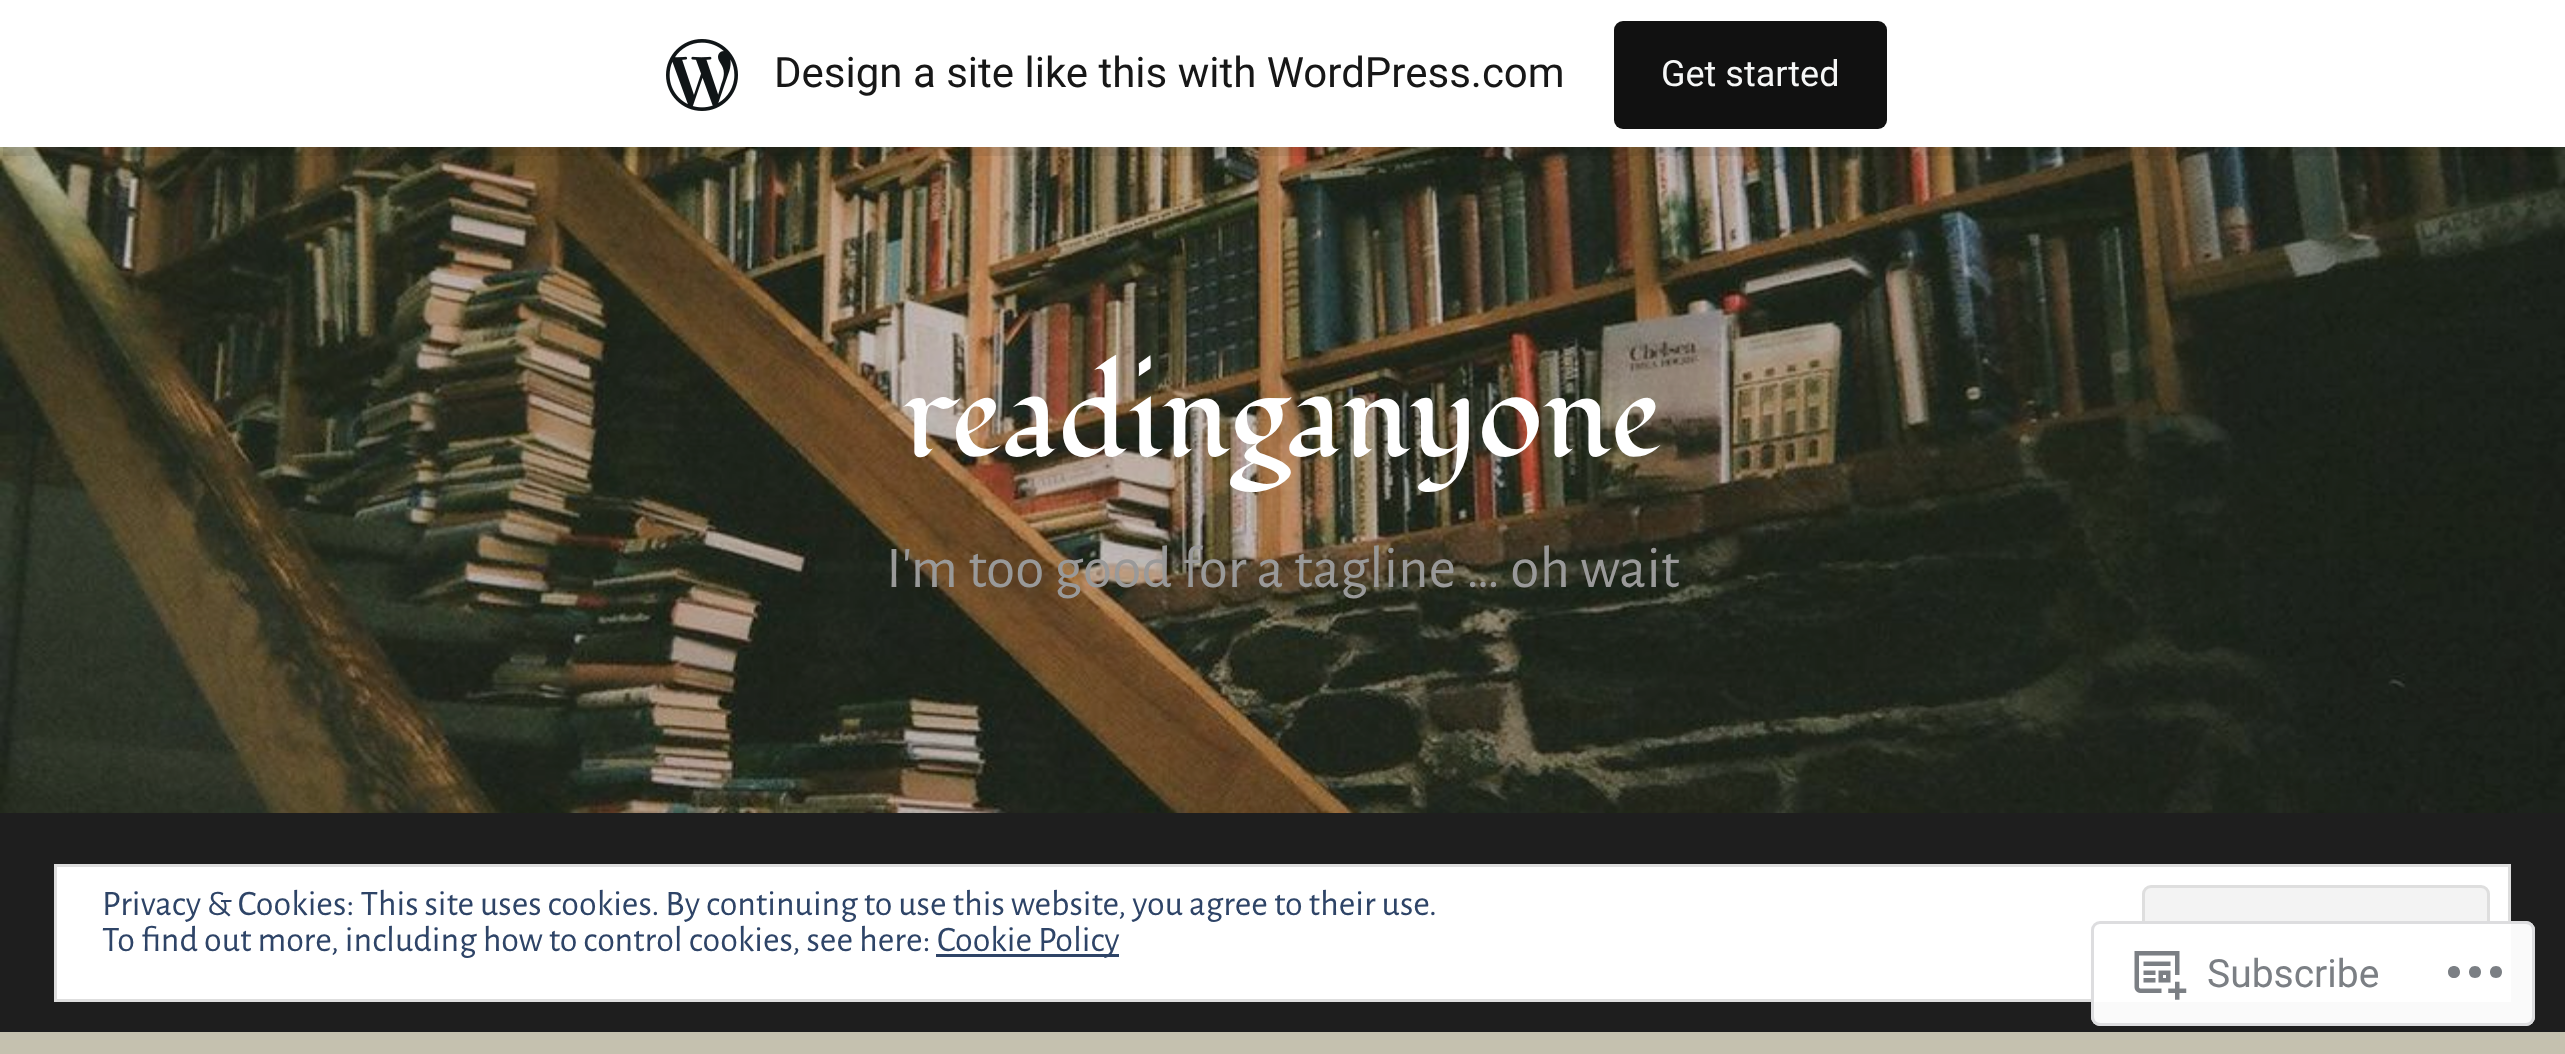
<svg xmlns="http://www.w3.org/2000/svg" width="2565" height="1054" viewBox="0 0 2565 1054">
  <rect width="100%" height="100%" fill="#c5c1af"/>
  <image x="0" y="147" width="2565" height="666" href="img/2.png"/>
  <path d="M3 147V156H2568V9H2565V147Z" fill="#00000014"/>
  <path d="M0 0h2565v147H0z" fill="#fff"/>
  <image x="666" y="39" width="72" height="72" href="img/1.png"/>
  <rect x="1614" y="21" width="273" height="108" rx="9" fill="#111"/>
  <path d="M0 813h2565v219H0z" fill="#1e1e1e"/>
  <path d="M55.5 865.5h2454v135H55.5z" fill="#fff" stroke="#dedede" stroke-width="3"/>
  <rect x="2143.5" y="886.5" width="345" height="93" rx="7.5" fill="#f3f3f3" stroke="#dedede" stroke-width="3"/>
  <path d="M936 954h183v3H936z" fill="#2e4467"/>
  <rect x="2091" y="921" width="444" height="105" rx="9" fill="#fffffffa"/>
  <rect x="2092.5" y="922.5" width="441" height="102" rx="7.5" fill="none" stroke="#dcdcdefa" stroke-width="3"/>
  <image x="2134" y="951" width="53" height="49" href="img/3.png"/>
  <path d="M2460 972C2460 980 2448 980 2448 972C2448 964 2460 964 2460 972ZM2496 966C2488 966 2488 978 2496 978C2504 978 2504 966 2496 966ZM2475 966C2467 966 2467 978 2475 978C2483 978 2483 966 2475 966Z" fill="#7b7f84"/>
  <text x="774" y="87" font-family="Roboto" font-size="42" fill="#171717">Design a site like this with WordPress.com</text>
  <text x="1661" y="86" font-family="Roboto" font-size="36" fill="#f6f7f7">Get started</text>
  <text x="903" y="456" font-family="Fondamento" font-size="121.5" fill="#fff">readinganyone</text>
  <text x="886" y="587" font-family="Alegreya Sans" font-size="59.4" fill="#999">I'm too good for a tagline … oh wait</text>
  <g font-family="Alegreya Sans" font-size="36" fill="#2e4467">
    <text x="102" y="915">Privacy &amp; Cookies: This site uses cookies. By continuing to use this website, you agree to their use.</text>
    <text x="102" y="951">To find out more, including how to control cookies, see here:</text>
    <text x="937" y="951">Cookie Policy</text>
  </g>
  <text x="2207" y="987" font-family="Roboto" font-size="39" fill="#7b7f84">Subscribe</text>
</svg>
